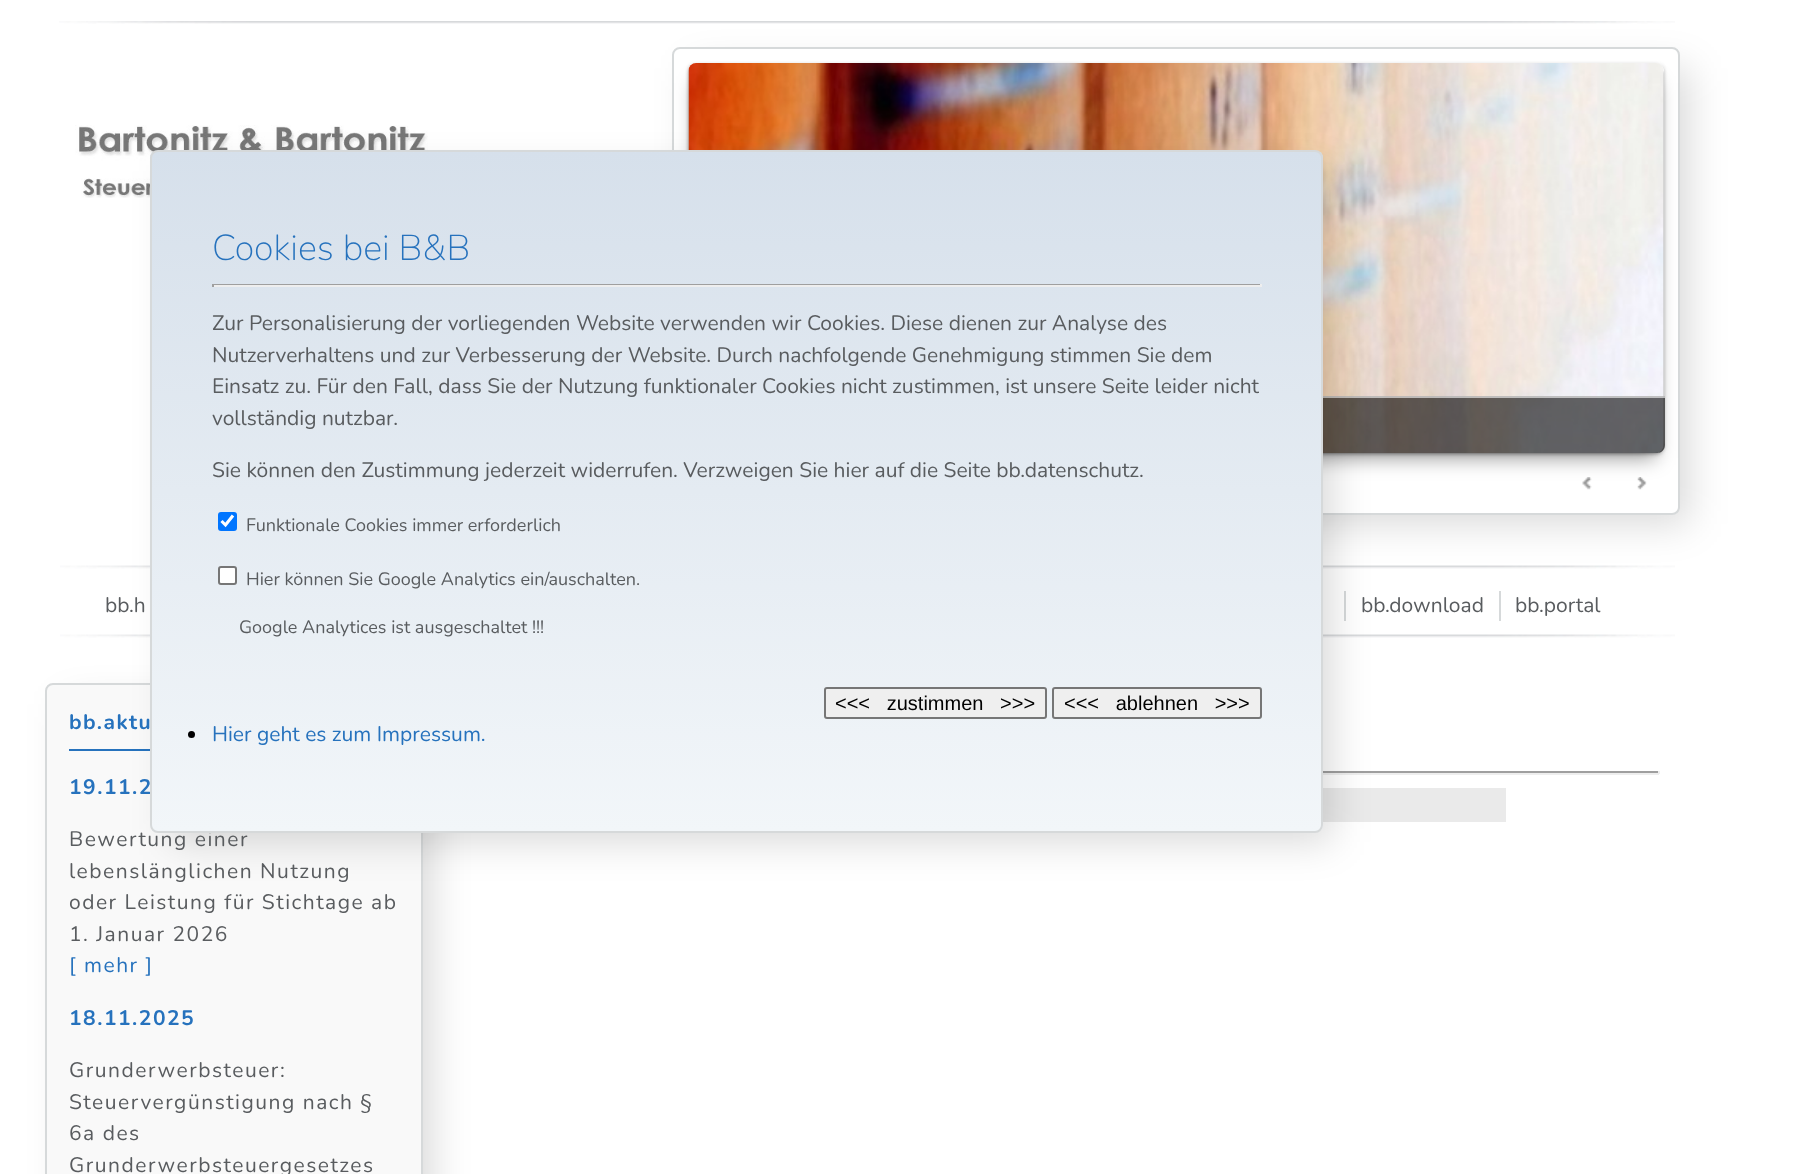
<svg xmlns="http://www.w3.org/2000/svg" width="1798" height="1174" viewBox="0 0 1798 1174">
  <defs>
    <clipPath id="clip1"><rect x="150" y="150" width="1173" height="683" rx="8"/></clipPath>
    <linearGradient id="g1" gradientUnits="userSpaceOnUse" x1="737" y1="151" x2="737" y2="831"><stop offset="0" stop-color="#d6e0eb"/><stop offset="1" stop-color="#f2f6f9"/></linearGradient>
  </defs>
  <rect width="100%" height="100%" fill="#fff"/>
  <rect x="693" y="68" width="996" height="456" rx="1.5" fill="#00000026" filter="blur(19px)"/>
  <rect x="673" y="48" width="1006" height="466" rx="7" fill="#fff" stroke="#d6d9da" stroke-width="2"/>
  <path d="M696 83h960v375H696z" fill="#00000066" filter="blur(10px)"/>
  <rect x="689" y="65" width="975" height="390" rx="8" fill="#00000026" filter="blur(2px)"/>
  <rect x="690" y="65" width="972" height="387" rx="6" fill="#000000b3" filter="blur(2px)"/>
  <rect x="689" y="59" width="975" height="390" rx="8" fill="#ffffff99" filter="blur(1px)"/>
  <path d="M696 66H1656C1660 66 1664 69 1664 74V71C1664 67 1660 63 1656 63H697C693 63 690 66 689 70C691 67 693 66 696 66Z" fill="#fffffff7"/>
  <image x="688" y="63" width="976" height="390" href="img/1.png"/>
  <path d="M689 396H1665V445C1665 449.5 1661.5 453 1657 453H697C692.5 453 689 449.5 689 445Z" fill="#00000099"/>
  <path d="M1323 396h342v2H1323z" fill="#ffffff99"/>
  <image x="75" y="125" width="353" height="73" href="img/5.png"/>
  <image x="60" y="565" width="1615" height="4" href="img/6.png"/>
  <image x="60" y="634" width="1615" height="4" href="img/6.png"/>
  <path d="M1344 591h2v30H1344z" fill="#d6d9da"/>
  <rect x="66" y="704" width="366" height="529" rx="1.5" fill="#00000026" filter="blur(19px)"/>
  <rect x="46" y="684" width="376" height="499" rx="7" fill="#f9f9f9" stroke="#d6d9da" stroke-width="2"/>
  <path d="M69 749h81v2H69z" fill="#2672bd"/>
  <path d="M1323 771h336v2H1323z" fill="#9f9f9f"/>
  <path d="M1658 771h2v3H1658z" fill="#eee"/>
  <path d="M1323 773h336v2H1323z" fill="#eee"/>
  <path d="M1323 788h183v34H1323z" fill="#eaeaea"/>
  <rect x="171" y="171" width="1161" height="671" rx="1.5" fill="#00000026" filter="blur(19px)"/>
  <image x="1582" y="477" width="10" height="13" href="img/2.png"/>
  <image x="1637" y="477" width="10" height="13" href="img/3.png"/>
  <image x="59" y="21" width="1616" height="3" href="img/4.png"/>
  <path d="M1499 591h2v30H1499z" fill="#d6d9da"/>
  <g font-family="Nunito" font-size="21" fill="#595c5f">
    <text x="105" y="612">bb.h</text>
    <text x="1361" y="612">bb.download</text>
    <text x="1515" y="612">bb.portal</text>
  </g>
  <g font-family="Nunito" font-size="21" font-weight="bold" letter-spacing="1.5" fill="#2672bd">
    <text x="69" y="729">bb.aktu</text>
    <text x="69" y="794">19.11.2</text>
  </g>
  <g clip-path="url(#clip1)">
    <path d="M150 152h1173v679H150z" fill="url(#g1)"/>
  </g>
  <text x="69" y="846" font-family="Nunito" font-size="21" letter-spacing="1.5" fill="#595c5f">Bewertung einer</text>
  <rect x="151" y="151" width="1171" height="681" rx="7" fill="none" stroke="#d6d9da" stroke-width="2"/>
  <rect x="1053" y="688" width="208" height="30" rx="2" fill="#efefef" stroke="#767676" stroke-width="2"/>
  <text x="1064" y="710" font-family="Liberation Sans" font-size="20" fill="#000" xml:space="preserve">&lt;&lt;&lt;   ablehnen   &gt;&gt;&gt;</text>
  <rect x="825" y="688" width="221" height="30" rx="2" fill="#efefef" stroke="#767676" stroke-width="2"/>
  <text x="835" y="710" font-family="Liberation Sans" font-size="20" fill="#000" xml:space="preserve">&lt;&lt;&lt;   zustimmen   &gt;&gt;&gt;</text>
  <path d="M212 284h1050v1H212z" fill="#9f9f9f"/>
  <path d="M1260 284h2v3H1260z" fill="#eee"/>
  <path d="M212 285h1050v2H212z" fill="#eee"/>
  <path d="M212 284h2v3H212z" fill="#9f9f9f"/>
  <text x="212" y="741" font-family="Nunito" font-size="21" fill="#2672bd">Hier geht es zum Impressum.</text>
  <circle cx="191.5" cy="734.5" r="3.5" fill="#000"/>
  <g font-family="Nunito" font-size="18" fill="#595c5f">
    <text x="239" y="633">Google Analytices ist ausgeschaltet !!!</text>
    <text x="246" y="585">Hier können Sie Google Analytics ein/auschalten.</text>
  </g>
  <rect x="219" y="567" width="17" height="17" rx="2" fill="#fff" stroke="#767676" stroke-width="2"/>
  <text x="246" y="531" font-family="Nunito" font-size="18" fill="#595c5f">Funktionale Cookies immer erforderlich</text>
  <rect x="218" y="512" width="19" height="19" rx="3" fill="#0075ff"/>
  <path d="M221.5 521L225.5 525L233 515.5" fill="none" stroke="#fff" stroke-width="3.1"/>
  <g font-family="Nunito" font-size="21" fill="#595c5f">
    <text x="212" y="477">Sie können den Zustimmung jederzeit widerrufen. Verzweigen Sie hier auf die Seite bb.datenschutz.</text>
    <text x="212" y="425">vollständig nutzbar.</text>
    <text x="212" y="393">Einsatz zu. Für den Fall, dass Sie der Nutzung funktionaler Cookies nicht zustimmen, ist unsere Seite leider nicht</text>
    <text x="212" y="362">Nutzerverhaltens und zur Verbesserung der Website. Durch nachfolgende Genehmigung stimmen Sie dem</text>
    <text x="212" y="330">Zur Personalisierung der vorliegenden Website verwenden wir Cookies. Diese dienen zur Analyse des</text>
  </g>
  <text x="212" y="260" font-family="Nunito" font-size="36" font-weight="200" fill="#2672bd">Cookies bei B&amp;B</text>
  <g font-family="Nunito" font-size="21" letter-spacing="1.5" fill="#595c5f">
    <text x="69" y="878">lebenslänglichen Nutzung</text>
    <text x="69" y="909">oder Leistung für Stichtage ab</text>
    <text x="69" y="941">1. Januar 2026</text>
  </g>
  <text x="69" y="972" font-family="Nunito" font-size="21" letter-spacing="1.5" fill="#2672bd">[ mehr ]</text>
  <text x="69" y="1025" font-family="Nunito" font-size="21" font-weight="bold" letter-spacing="1.5" fill="#2672bd">18.11.2025</text>
  <g font-family="Nunito" font-size="21" letter-spacing="1.5" fill="#595c5f">
    <text x="69" y="1077">Grunderwerbsteuer:</text>
    <text x="69" y="1109">Steuervergünstigung nach §</text>
    <text x="69" y="1140">6a des</text>
    <text x="69" y="1172">Grunderwerbsteuergesetzes</text>
  </g>
</svg>
